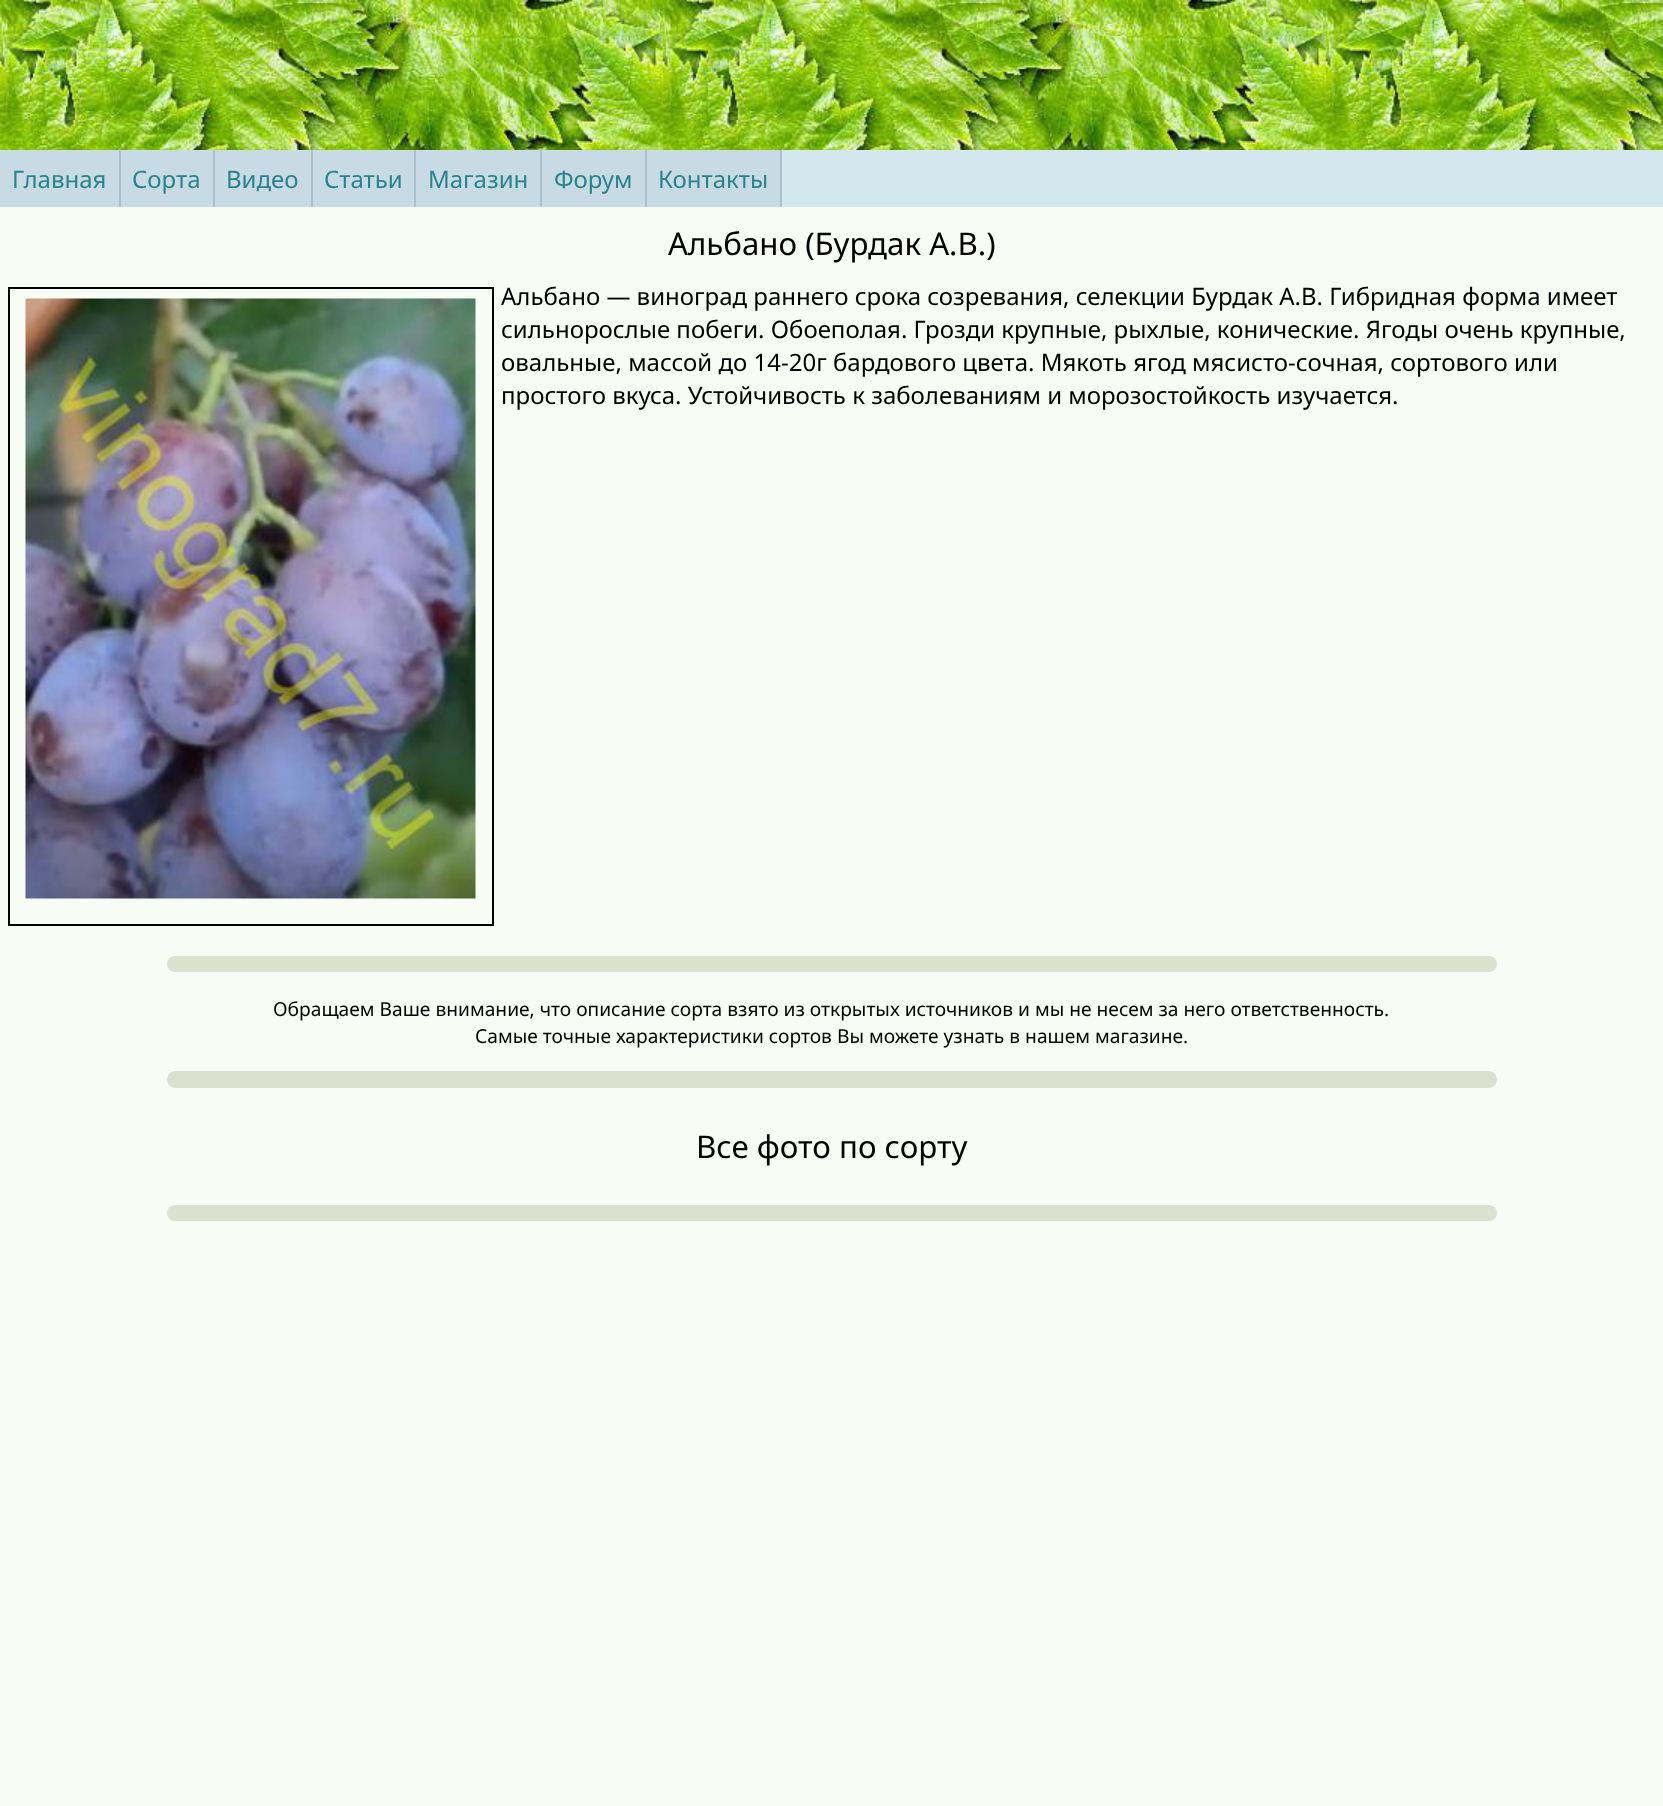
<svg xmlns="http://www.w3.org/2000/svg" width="1663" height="1806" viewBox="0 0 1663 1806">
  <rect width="100%" height="100%" fill="#f7fdf5"/>
  <image x="0" y="0" width="1663" height="150" href="img/1.png"/>
  <path d="M782 150h881v57H782z" fill="#d4e7ee"/>
  <path d="M313 150h101v57H313z" fill="#c8dbe4"/>
  <path d="M121 150h92v57H121z" fill="#c8dbe4"/>
  <path d="M0 150h119v57H0z" fill="#c8dbe4"/>
  <path d="M119 150h2v57H119z" fill="#adc0ce"/>
  <path d="M213 150h2v57H213z" fill="#adc0ce"/>
  <path d="M215 150h96v57H215z" fill="#c8dbe4"/>
  <path d="M311 150h2v57H311z" fill="#adc0ce"/>
  <path d="M414 150h2v57H414z" fill="#adc0ce"/>
  <path d="M416 150h124v57H416z" fill="#c8dbe4"/>
  <path d="M540 150h2v57H540z" fill="#adc0ce"/>
  <path d="M542 150h103v57H542z" fill="#c8dbe4"/>
  <path d="M645 150h2v57H645z" fill="#adc0ce"/>
  <path d="M647 150h133v57H647z" fill="#c8dbe4"/>
  <path d="M780 150h2v57H780z" fill="#adc0ce"/>
  <path d="M9 288h484v637H9z" fill="none" stroke="#000" stroke-width="2"/>
  <image x="25" y="298" width="451" height="601" href="img/2.png"/>
  <rect x="167" y="956" width="1330" height="16" rx="8" fill="#dbe1cf"/>
  <rect x="167" y="1071" width="1330" height="17" rx="8.5" fill="#dbe1cf"/>
  <rect x="167" y="1205" width="1330" height="16" rx="8" fill="#dbe1cf"/>
  <g font-family="Noto Sans" font-size="24" fill="#29838c">
    <text x="12" y="188">Главная</text>
    <text x="132" y="188">Сорта</text>
    <text x="226" y="188">Видео</text>
    <text x="324" y="188">Статьи</text>
    <text x="428" y="188">Магазин</text>
    <text x="554" y="188">Форум</text>
    <text x="658" y="188">Контакты</text>
  </g>
  <text x="668" y="255" font-family="Noto Sans" font-size="31.25" fill="#000">Альбано (Бурдак А.В.)</text>
  <g font-family="Noto Sans" font-size="24" fill="#000">
    <text x="501" y="305">Альбано — виноград раннего срока созревания, селекции Бурдак А.В. Гибридная форма имеет</text>
    <text x="501" y="338">сильнорослые побеги. Обоеполая. Грозди крупные, рыхлые, конические. Ягоды очень крупные,</text>
    <text x="501" y="371">овальные, массой до 14-20г бардового цвета. Мякоть ягод мясисто-сочная, сортового или</text>
    <text x="501" y="404">простого вкуса. Устойчивость к заболеваниям и морозостойкость изучается.</text>
  </g>
  <g font-family="Noto Sans" font-size="19.2" fill="#000">
    <text x="273" y="1016">Обращаем Ваше внимание, что описание сорта взято из открытых источников и мы не несем за него ответственность.</text>
    <text x="475" y="1043">Самые точные характеристики сортов Вы можете узнать в нашем магазине.</text>
  </g>
  <text x="696" y="1158" font-family="Noto Sans" font-size="31.25" fill="#000">Все фото по сорту</text>
</svg>
